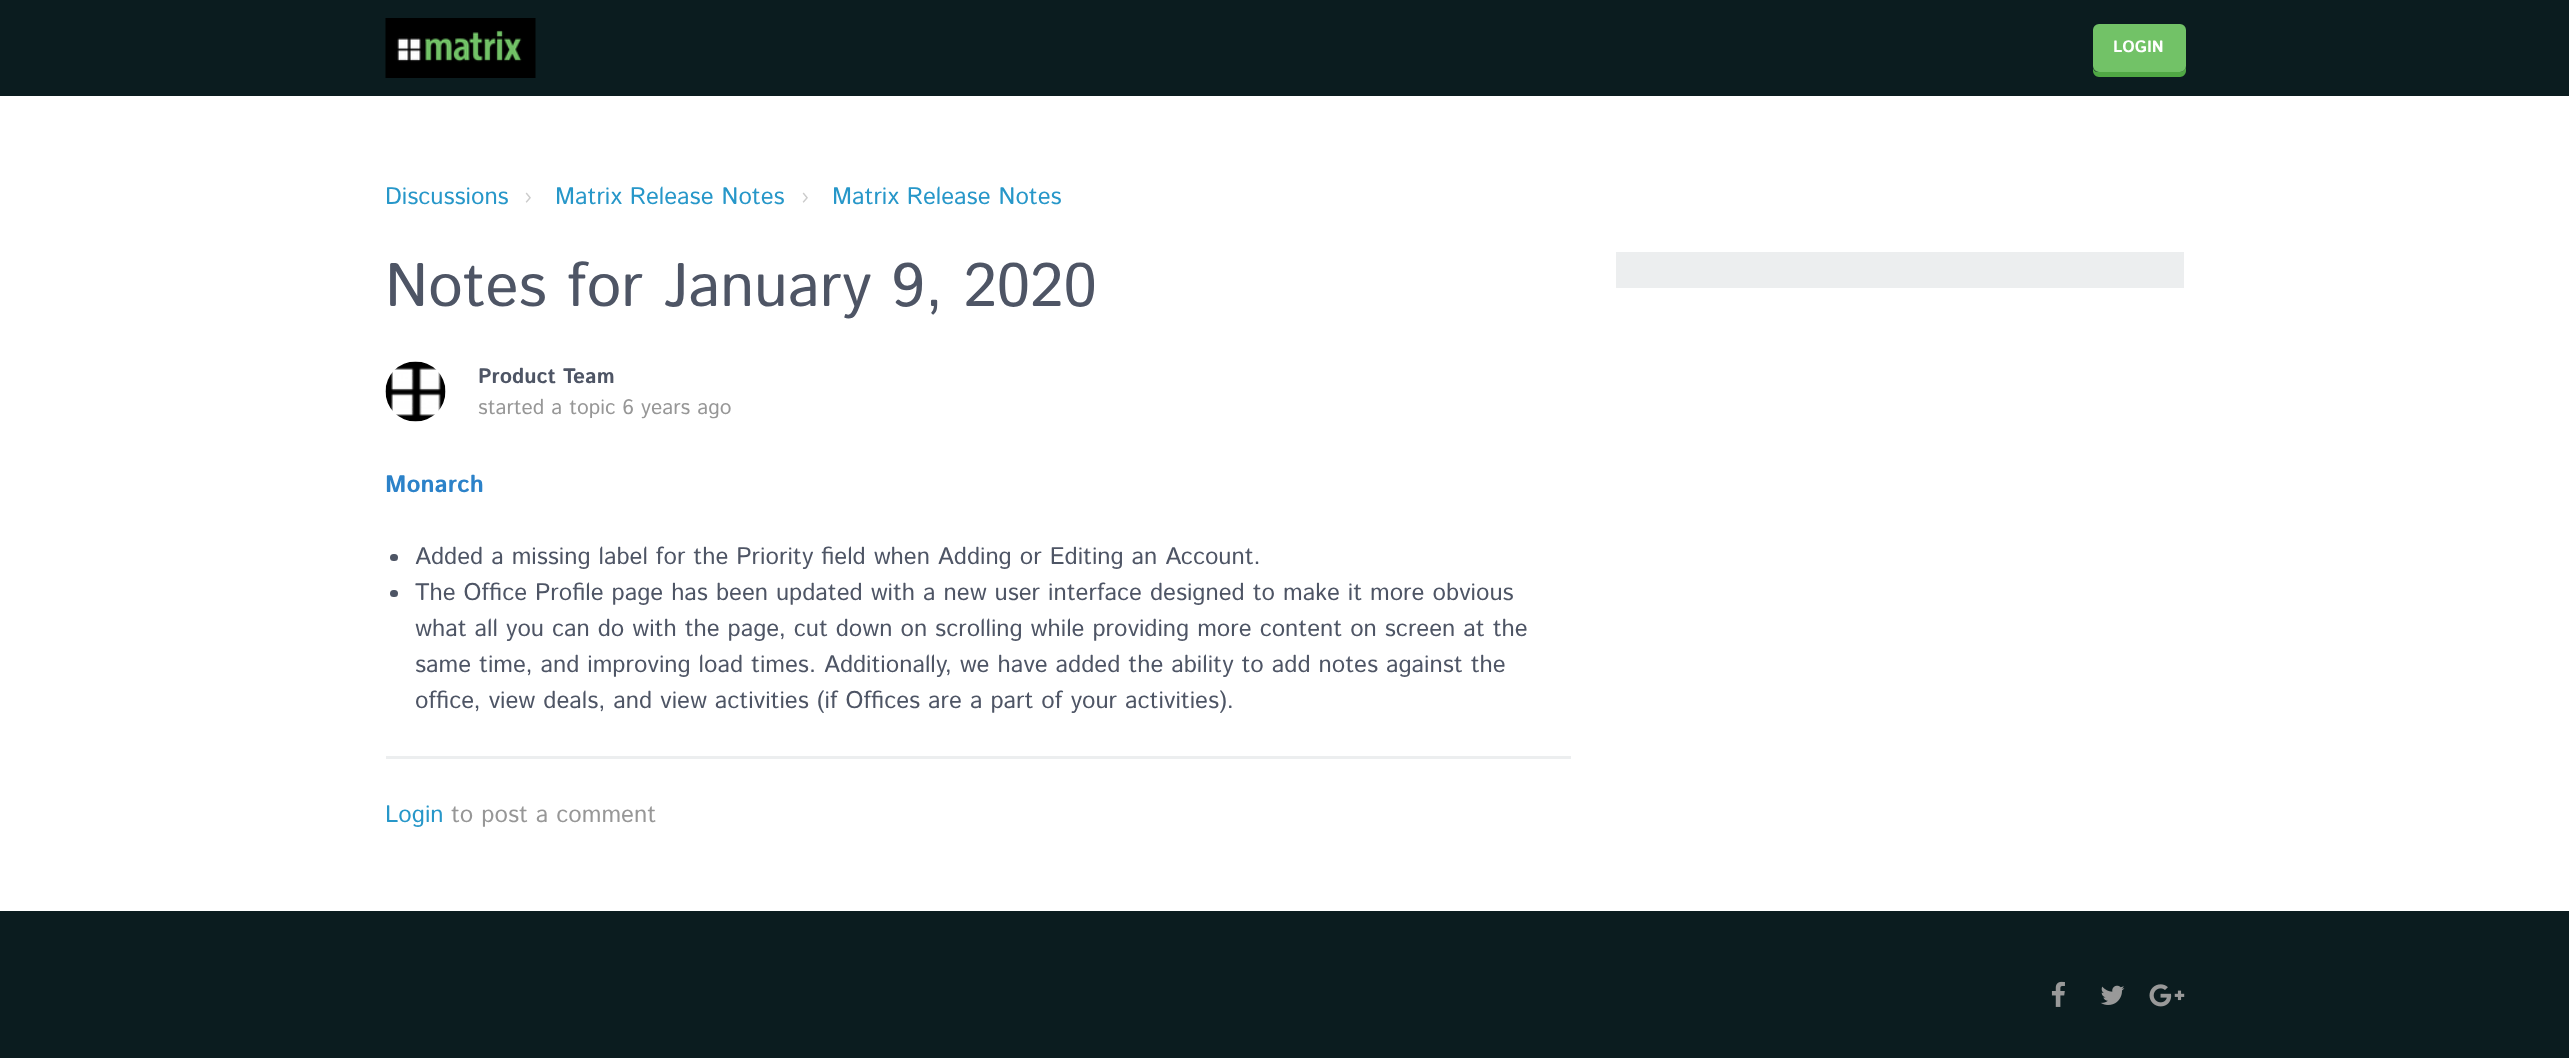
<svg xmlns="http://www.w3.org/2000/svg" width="2569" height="1058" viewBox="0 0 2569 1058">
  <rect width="100%" height="100%" fill="#fff"/>
  <path d="M0 0h2569v96H0z" fill="#0b1c1f"/>
  <image x="385" y="18" width="151" height="60" href="img/1.png"/>
  <path d="M2093 68V71C2093 74 2096 77 2099 77H2180C2183 77 2186 74 2186 71V35V33V66C2186 69 2183 72 2180 72H2098C2096 72 2094 71 2093 68Z" fill="#50a844"/>
  <rect x="2094.5" y="25.5" width="90" height="45" rx="4.5" fill="#72c267" stroke="#72c267" stroke-width="3"/>
  <image x="385" y="361" width="61" height="61" href="img/2.png"/>
  <path d="M386 756h1185v3H386z" fill="#eceeef"/>
  <rect x="390" y="554" width="8" height="7" rx="3.5" fill="#4e5565"/>
  <rect x="390" y="590" width="8" height="7" rx="3.5" fill="#4e5565"/>
  <path d="M1616 252h568v36H1616z" fill="#eceeef"/>
  <path d="M0 911h2569v147H0z" fill="#0b1c1f"/>
  <image x="2051" y="981" width="14" height="26" href="img/3.png"/>
  <image x="2100" y="985" width="25" height="20" href="img/4.png"/>
  <image x="2149" y="984" width="36" height="23" href="img/5.png"/>
  <text x="2113" y="52" font-family="Istok Web" font-size="16.5" font-weight="bold" fill="#fff">LOGIN</text>
  <text x="385" y="204" font-family="Istok Web" font-size="24" fill="#2797c9">Discussions</text>
  <text x="524" y="204" font-family="Istok Web" font-size="24" fill="#ccc">›</text>
  <text x="555" y="204" font-family="Istok Web" font-size="24" fill="#2797c9">Matrix Release Notes</text>
  <text x="801" y="204" font-family="Istok Web" font-size="24" fill="#ccc">›</text>
  <text x="832" y="204" font-family="Istok Web" font-size="24" fill="#2797c9">Matrix Release Notes</text>
  <text x="385" y="306" font-family="Istok Web" font-size="61.5" fill="#4e5565">Notes for January 9, 2020</text>
  <text x="478" y="383" font-family="Istok Web" font-size="21" font-weight="bold" fill="#4e5565">Product Team</text>
  <text x="478" y="414" font-family="Istok Web" font-size="21" fill="#979797">started a topic 6 years ago</text>
  <text x="385" y="492" font-family="Istok Web" font-size="24" font-weight="bold" fill="#2c82c9">Monarch</text>
  <g font-family="Istok Web" font-size="24" fill="#4e5565">
    <text x="415" y="564">Added a missing label for the Priority field when Adding or Editing an Account.</text>
    <text x="415" y="600">The Office Profile page has been updated with a new user interface designed to make it more obvious</text>
    <text x="415" y="636">what all you can do with the page, cut down on scrolling while providing more content on screen at the</text>
    <text x="415" y="672">same time, and improving load times. Additionally, we have added the ability to add notes against the</text>
    <text x="415" y="708">office, view deals, and view activities (if Offices are a part of your activities).</text>
  </g>
  <text x="385" y="822" font-family="Istok Web" font-size="24" fill="#2797c9">Login</text>
  <text x="451" y="822" font-family="Istok Web" font-size="24" fill="#979797">to post a comment</text>
</svg>
